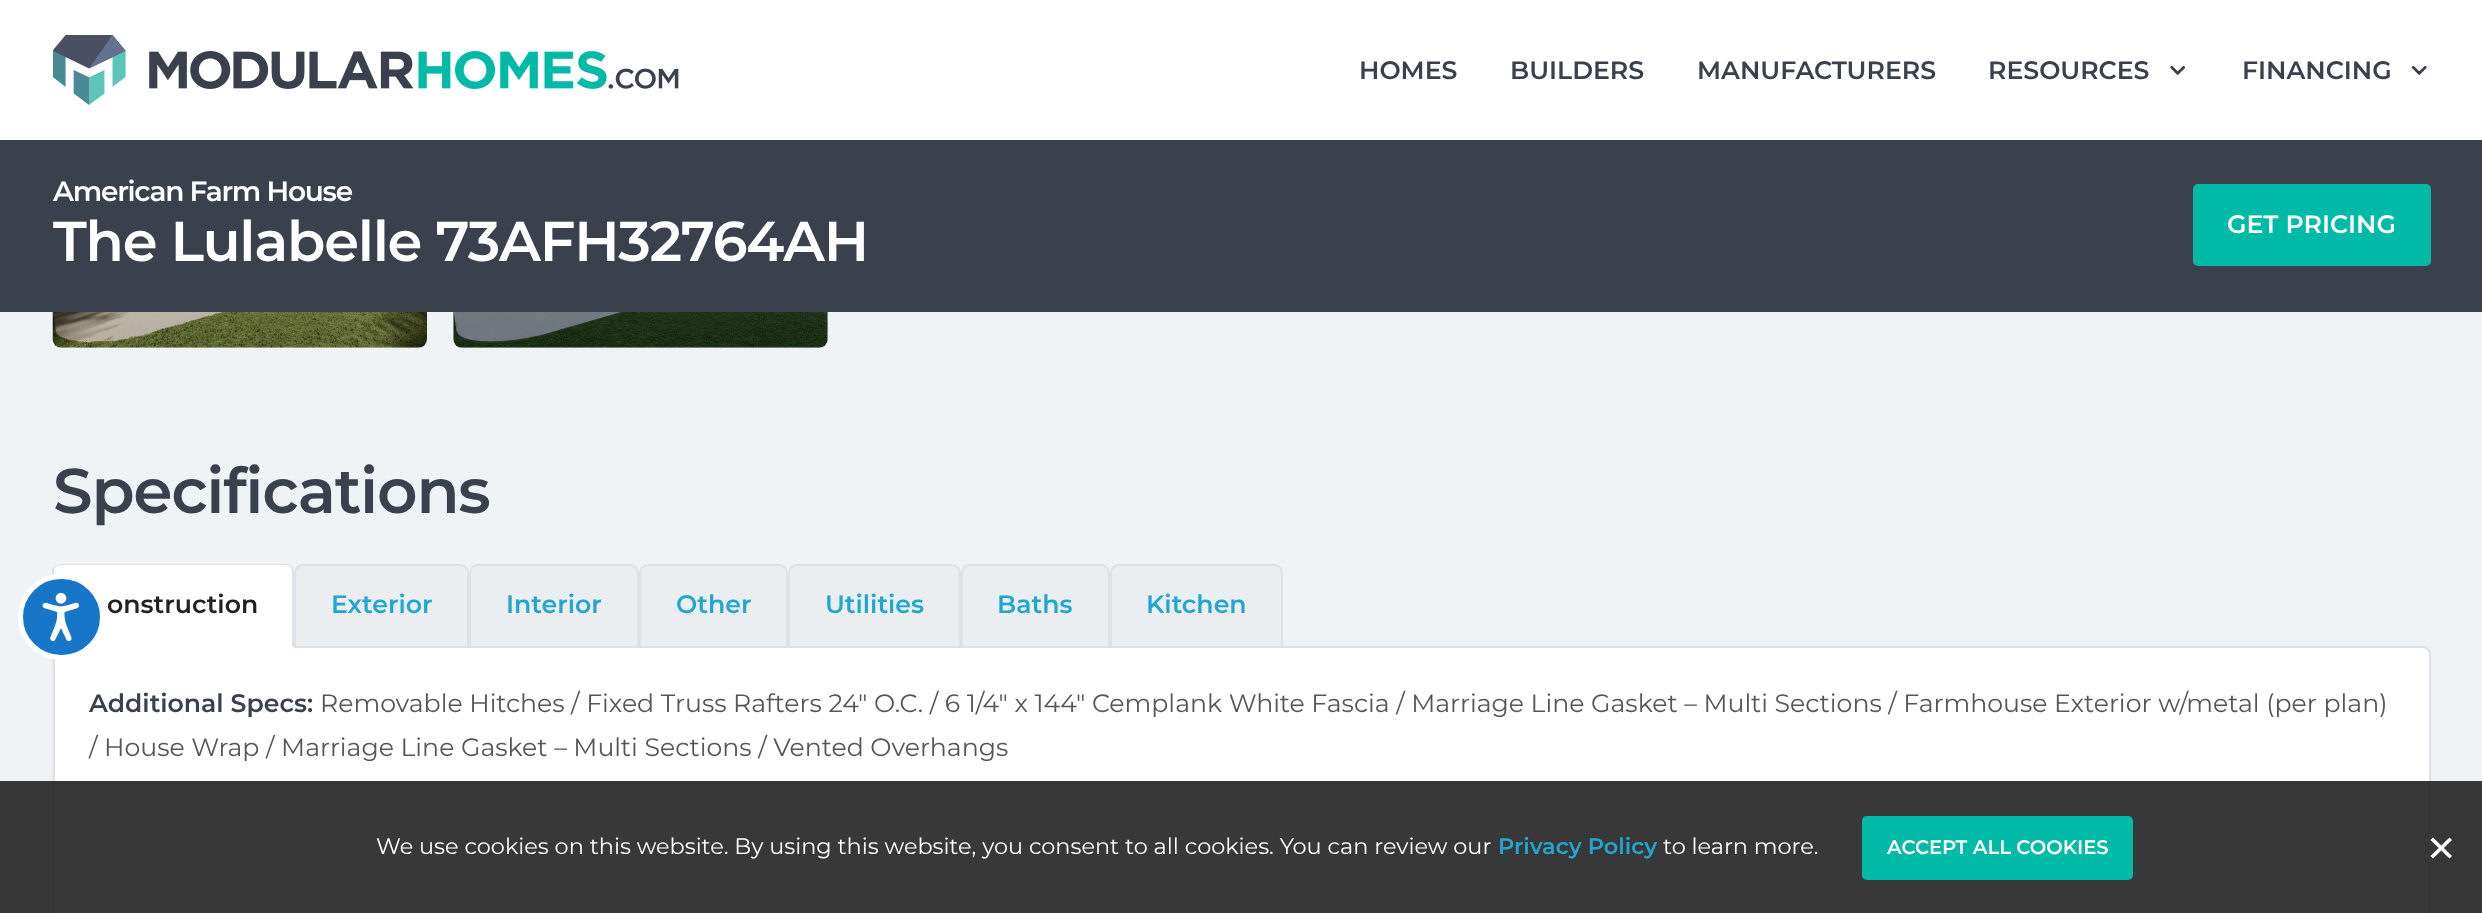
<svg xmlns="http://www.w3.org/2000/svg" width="2482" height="913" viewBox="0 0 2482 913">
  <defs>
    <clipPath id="clip1"><path d="M53 175h2028v102H53z"/></clipPath>
  </defs>
  <rect width="100%" height="100%" fill="#f0f3f6"/>
  <path d="M0 0h2482v140H0z" fill="#fff"/>
  <image x="53" y="35" width="626" height="70" href="img/1.png"/>
  <image x="2170" y="65" width="16" height="10" href="img/2.png"/>
  <image x="2411" y="65" width="16" height="10" href="img/3.png"/>
  <path d="M0 140h2482v172H0z" fill="#3a414c"/>
  <rect x="2193" y="184" width="238" height="82" rx="5" fill="#00baa7"/>
  <image x="52" y="312" width="375" height="36" href="img/4.png"/>
  <image x="453" y="312" width="375" height="36" href="img/5.png"/>
  <path d="M54 649h2375v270H54z" fill="#22272d1a" filter="blur(2px)"/>
  <path d="M303 565H460C464.5 565 468 568.5 468 573V647H295V573C295 568.5 298.5 565 303 565Z" fill="#ebeef1" stroke="#dee2e6" stroke-width="2"/>
  <path d="M478 565H630C634.5 565 638 568.5 638 573V647H470V573C470 568.5 473.5 565 478 565Z" fill="#ebeef1" stroke="#dee2e6" stroke-width="2"/>
  <path d="M648 565H779C783.5 565 787 568.5 787 573V647H640V573C640 568.5 643.5 565 648 565Z" fill="#ebeef1" stroke="#dee2e6" stroke-width="2"/>
  <path d="M797 565H952C956.5 565 960 568.5 960 573V647H789V573C789 568.5 792.5 565 797 565Z" fill="#ebeef1" stroke="#dee2e6" stroke-width="2"/>
  <path d="M970 565H1101C1105.5 565 1109 568.5 1109 573V647H962V573C962 568.5 965.5 565 970 565Z" fill="#ebeef1" stroke="#dee2e6" stroke-width="2"/>
  <path d="M1119 565H1274C1278.5 565 1282 568.5 1282 573V647H1111V573C1111 568.5 1114.5 565 1119 565Z" fill="#ebeef1" stroke="#dee2e6" stroke-width="2"/>
  <path d="M54 647H2422C2426.5 647 2430 650.5 2430 655V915C2430 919.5 2426.5 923 2422 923H62C57.5 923 54 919.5 54 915Z" fill="#fff" stroke="#dee2e6" stroke-width="2"/>
  <path d="M62 564H285C290 564 294 568 294 573V648H53V573C53 568 57 564 62 564Z" fill="#fff"/>
  <path d="M61 564C59 564 57 565 55 566L56 567C57 566 59 565 61 565H285C287 565 289 566 290 567L291 566C290 565 288 564 285 564Z" fill="#dee2e6"/>
  <path d="M291 566C293 568 294 570 294 572V648L292 646V572C292 570 291 568 290 567Z" fill="#dee2e6"/>
  <path d="M294 648L292 646H54L52 648Z" fill="#fff"/>
  <path d="M52 648L54 646V572C54 570 55 568 56 567L55 566L52 569Z" fill="#dee2e6"/>
  <rect x="20.5" y="576.5" width="82" height="81" rx="40.5" fill="#1876c9" stroke="#fff" stroke-width="5"/>
  <image x="42" y="593" width="37" height="48" href="img/6.png"/>
  <path d="M0 781h2482v132H0z" fill="#222222e6"/>
  <rect x="1862" y="816" width="271" height="64" rx="5" fill="#00baa7"/>
  <path d="M2449.5 837.5L2452 840L2433 858.5L2430.5 856Z" fill="#fff"/>
  <path d="M2430.5 840L2433 837.5L2452 856L2449.5 858.5Z" fill="#fff"/>
  <g font-family="Montserrat" font-size="25.2" font-weight="600" fill="#3a414c">
    <text x="1359" y="79">HOMES</text>
    <text x="1510" y="79">BUILDERS</text>
    <text x="1697" y="79">MANUFACTURERS</text>
    <text x="1988" y="79">RESOURCES</text>
    <text x="2242" y="79">FINANCING</text>
  </g>
  <text x="53" y="201" font-family="Montserrat" font-size="28" font-weight="600" letter-spacing="-1.25" fill="#fff">American Farm House</text>
  <g clip-path="url(#clip1)">
    <text x="53" y="261" font-family="Montserrat" font-size="56" font-weight="600" letter-spacing="-1.25" fill="#fff">The Lulabelle 73AFH32764AH</text>
  </g>
  <text x="2227" y="233" font-family="Montserrat" font-size="25.2" font-weight="600" fill="#fff">GET PRICING</text>
  <text x="53" y="513" font-family="Montserrat" font-size="63" font-weight="600" letter-spacing="-1.25" fill="#3a414c">Specifications</text>
  <text x="107" y="613" font-family="Montserrat" font-size="25.2" font-weight="600" fill="#222">onstruction</text>
  <g font-family="Montserrat" font-size="25.2" font-weight="600" fill="#21a6ce">
    <text x="331" y="613">Exterior</text>
    <text x="506" y="613">Interior</text>
    <text x="676" y="613">Other</text>
    <text x="825" y="613">Utilities</text>
    <text x="997" y="613">Baths</text>
    <text x="1146" y="613">Kitchen</text>
  </g>
  <text x="89" y="712" font-family="Montserrat" font-size="25.2" font-weight="600" fill="#3a414c">Additional Specs:</text>
  <g font-family="Montserrat" font-size="25.2" fill="#565656">
    <text x="320" y="712">Removable Hitches / Fixed Truss Rafters 24″ O.C. / 6 1/4″ x 144″ Cemplank White Fascia / Marriage Line Gasket – Multi Sections / Farmhouse Exterior w/metal (per plan)</text>
    <text x="89" y="756">/ House Wrap / Marriage Line Gasket – Multi Sections / Vented Overhangs</text>
  </g>
  <text x="376" y="854" font-family="Montserrat" font-size="22.4" fill="#fff">We use cookies on this website. By using this website, you consent to all cookies. You can review our</text>
  <text x="1498" y="854" font-family="Montserrat" font-size="22.4" font-weight="600" fill="#21a6ce">Privacy Policy</text>
  <text x="1663" y="854" font-family="Montserrat" font-size="22.4" fill="#fff">to learn more.</text>
  <text x="1887" y="854" font-family="Montserrat" font-size="19.6" font-weight="600" fill="#fff">ACCEPT ALL COOKIES</text>
</svg>
